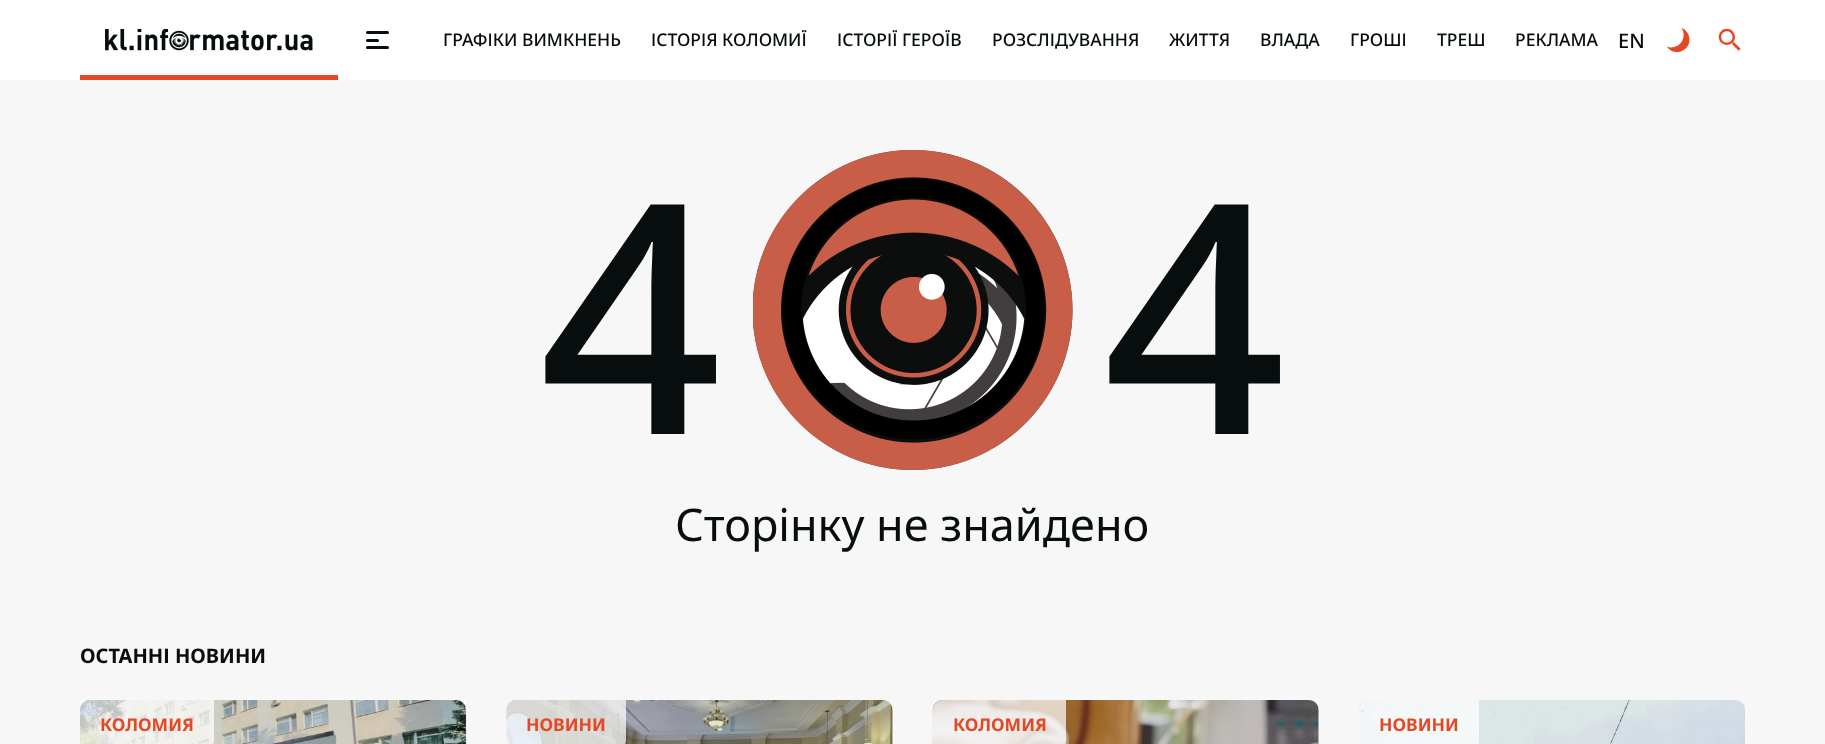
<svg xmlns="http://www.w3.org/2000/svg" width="1825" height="744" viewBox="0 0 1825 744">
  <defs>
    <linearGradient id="g1" gradientUnits="userSpaceOnUse" x1="273" y1="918" x2="273" y2="700"><stop offset="0" stop-color="#000" stop-opacity="0.8"/><stop offset="0.6" stop-color="#000" stop-opacity="0.1"/></linearGradient>
    <linearGradient id="g2" gradientUnits="userSpaceOnUse" x1="699" y1="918" x2="699" y2="700"><stop offset="0" stop-color="#000" stop-opacity="0.8"/><stop offset="0.6" stop-color="#000" stop-opacity="0.1"/></linearGradient>
    <linearGradient id="g3" gradientUnits="userSpaceOnUse" x1="1126" y1="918" x2="1126" y2="700"><stop offset="0" stop-color="#000" stop-opacity="0.8"/><stop offset="0.6" stop-color="#000" stop-opacity="0.1"/></linearGradient>
    <linearGradient id="g4" gradientUnits="userSpaceOnUse" x1="1552" y1="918" x2="1552" y2="700"><stop offset="0" stop-color="#000" stop-opacity="0.8"/><stop offset="0.6" stop-color="#000" stop-opacity="0.1"/></linearGradient>
  </defs>
  <rect width="100%" height="100%" fill="#f7f7f7"/>
  <path d="M0 0h1825v80H0z" fill="#fff"/>
  <image x="105" y="29" width="208" height="22" href="img/1.png"/>
  <path d="M80 75h258v5H80z" fill="#e54824"/>
  <rect x="366" y="31" width="23" height="3" rx="1.5" fill="#080e0d"/>
  <rect x="366" y="39" width="13" height="3" rx="1.5" fill="#080e0d"/>
  <rect x="366" y="46" width="23" height="3" rx="1.5" fill="#080e0d"/>
  <image x="1666" y="28" width="24" height="24" href="img/2.png"/>
  <image x="1718" y="28" width="23" height="23" href="img/3.png"/>
  <image x="753" y="150" width="320" height="320" href="img/4.png"/>
  <path d="M80 700h386v10H80z" fill="#fff"/>
  <image x="80" y="700" width="387" height="44" href="img/5.png"/>
  <path d="M90 700H456C461.5 700 466 704.5 466 710V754H80V710C80 704.5 84.5 700 90 700Z" fill="url(#g1)"/>
  <path d="M90 700H214V740C214 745.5 209.5 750 204 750H80V710C80 704.5 84.5 700 90 700Z" fill="#ffffffb8"/>
  <rect x="506" y="700" width="387" height="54" rx="10" fill="#fbe4d8"/>
  <image x="506" y="700" width="387" height="44" href="img/6.png"/>
  <path d="M516 700H883C888.5 700 893 704.5 893 710V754H506V710C506 704.5 510.5 700 516 700Z" fill="url(#g2)"/>
  <path d="M516 700H626V740C626 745.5 621.5 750 616 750H506V710C506 704.5 510.5 700 516 700Z" fill="#ffffffb8"/>
  <rect x="933" y="700" width="386" height="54" rx="10" fill="#fbe4d8"/>
  <image x="932" y="700" width="387" height="44" href="img/7.png"/>
  <path d="M943 700H1309C1314.5 700 1319 704.5 1319 710V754H933V710C933 704.5 937.5 700 943 700Z" fill="url(#g3)"/>
  <path d="M943 700H1066V740C1066 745.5 1061.5 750 1056 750H933V710C933 704.5 937.5 700 943 700Z" fill="#ffffffb8"/>
  <rect x="1359" y="700" width="386" height="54" rx="10" fill="#fbe4d8"/>
  <image x="1359" y="700" width="386" height="44" href="img/8.png"/>
  <path d="M1369 700H1735C1740.5 700 1745 704.5 1745 710V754H1359V710C1359 704.5 1363.5 700 1369 700Z" fill="url(#g4)"/>
  <path d="M1369 700H1479V740C1479 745.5 1474.5 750 1469 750H1359V710C1359 704.5 1363.5 700 1369 700Z" fill="#ffffffb8"/>
  <g font-family="Noto Sans" font-size="17.5" font-weight="500" fill="#080e0d">
    <text x="443" y="46">ГРАФІКИ ВИМКНЕНЬ</text>
    <text x="651" y="46">ІСТОРІЯ КОЛОМИЇ</text>
    <text x="837" y="46">ІСТОРІЇ ГЕРОЇВ</text>
    <text x="992" y="46">РОЗСЛІДУВАННЯ</text>
    <text x="1169" y="46">ЖИТТЯ</text>
    <text x="1260" y="46">ВЛАДА</text>
    <text x="1350" y="46">ГРОШІ</text>
    <text x="1437" y="46">ТРЕШ</text>
    <text x="1515" y="46">РЕКЛАМА</text>
  </g>
  <text x="1618" y="48" font-family="Noto Sans" font-size="20" font-weight="500" fill="#080e0d">EN</text>
  <g font-family="Noto Sans" font-size="320" font-weight="500" fill="#080e0d">
    <text x="539" y="434">4</text>
    <text x="1103" y="434">4</text>
  </g>
  <text x="675" y="541" font-family="Noto Sans" font-size="45" fill="#080e0d">Сторінку не знайдено</text>
  <text x="80" y="663" font-family="Noto Sans" font-size="20" font-weight="bold" fill="#080e0d">ОСТАННІ НОВИНИ</text>
  <g font-family="Noto Sans" font-size="17.5" font-weight="bold" fill="#e54824">
    <text x="100" y="731">КОЛОМИЯ</text>
    <text x="526" y="731">НОВИНИ</text>
    <text x="953" y="731">КОЛОМИЯ</text>
    <text x="1379" y="731">НОВИНИ</text>
  </g>
</svg>
